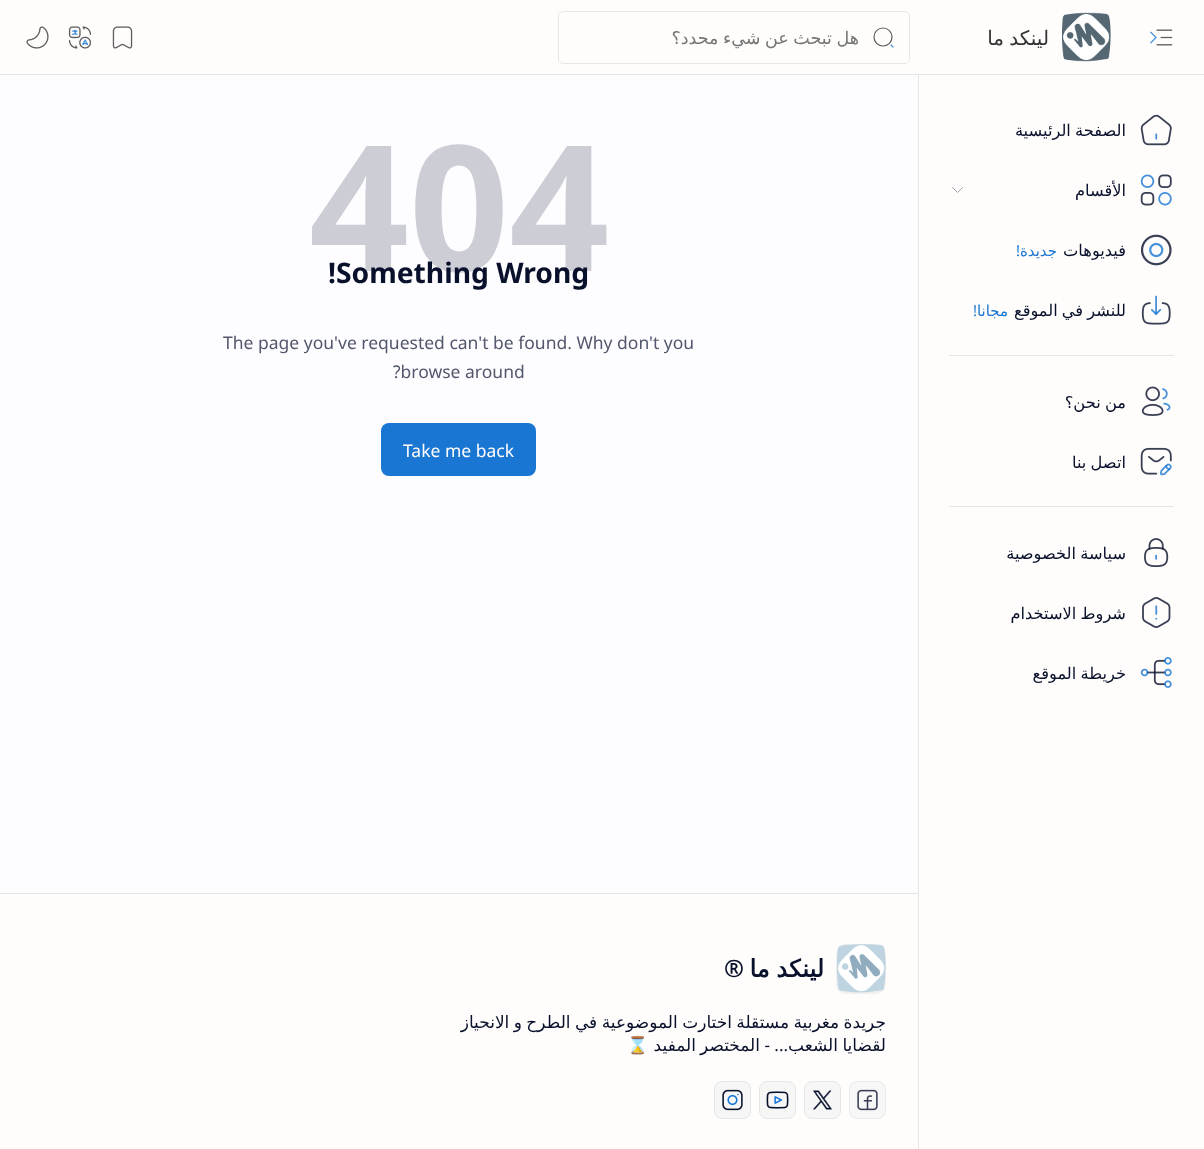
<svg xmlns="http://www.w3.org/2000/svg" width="1204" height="1149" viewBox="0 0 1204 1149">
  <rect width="100%" height="100%" fill="#fdfcff"/>
  <path d="M0 0h1204v74H0z" fill="#fffdfc"/>
  <image x="1150" y="29" width="23" height="17" href="img/1.png"/>
  <image x="1062" y="12" width="49" height="50" href="img/2.png"/>
  <rect x="558.5" y="11.5" width="351" height="52" rx="4.5" fill="none" stroke="#e6e6e6"/>
  <rect x="559" y="13" width="350" height="50" rx="4" fill="#fffdfc"/>
  <circle cx="883" cy="37" r="9" fill="none" stroke="#5d5c5d" stroke-width="1.2"/>
  <path d="M893 47L891 45" fill="none" stroke="#4791da" stroke-width="1.2" stroke-linecap="round" stroke-linejoin="round"/>
  <image x="112" y="26" width="21" height="23" href="img/3.png"/>
  <image x="68" y="26" width="24" height="23" href="img/4.png"/>
  <image x="26" y="26" width="23" height="23" href="img/5.png"/>
  <path d="M0 74h1204v1H0z" fill="#e6e6e6"/>
  <path d="M919 75h285v1074H919z" fill="#fffdfc"/>
  <image x="1140" y="114" width="32" height="32" href="img/6.png"/>
  <image x="1140" y="174" width="32" height="32" href="img/7.png"/>
  <path d="M962.5 187.5L957.5 192.5L952.5 187.5" fill="none" stroke="#989b9f" stroke-width="0.9" stroke-linecap="round" stroke-linejoin="round"/>
  <image x="1140" y="234" width="32" height="32" href="img/8.png"/>
  <image x="1141" y="295" width="30" height="30" href="img/9.png"/>
  <path d="M949 355h225v1H949z" fill="#e6e6e6"/>
  <image x="1141" y="386" width="30" height="30" href="img/10.png"/>
  <image x="1140" y="447" width="32" height="29" href="img/11.png"/>
  <path d="M949 506h225v1H949z" fill="#e6e6e6"/>
  <image x="1144" y="538" width="25" height="30" href="img/12.png"/>
  <image x="1142" y="597" width="29" height="31" href="img/13.png"/>
  <image x="1140" y="657" width="32" height="31" href="img/14.png"/>
  <path d="M918 75h1v1074H918z" fill="#e6e6e6"/>
  <rect x="381" y="423" width="155" height="53" rx="8" fill="#1976d2"/>
  <path d="M0 894h918v255H0z" fill="#fffdfc"/>
  <path d="M0 893h918v1H0z" fill="#e6e6e6"/>
  <rect x="836" y="944" width="50" height="50" rx="10" fill="#f2f0ef"/>
  <image x="837" y="944" width="49" height="49" href="img/15.png"/>
  <rect x="849.5" y="1081.5" width="36" height="37" rx="7.5" fill="#f8f7f7" stroke="#ebebea"/>
  <image x="857" y="1089" width="21" height="22" href="img/16.png"/>
  <rect x="804.5" y="1081.5" width="36" height="37" rx="7.5" fill="#f6f6f6" stroke="#e6e6e6"/>
  <image x="813" y="1090" width="19" height="20" href="img/17.png"/>
  <rect x="759.5" y="1081.5" width="36" height="37" rx="7.5" fill="#f6f6f6" stroke="#e6e6e6"/>
  <image x="766" y="1091" width="23" height="18" href="img/18.png"/>
  <rect x="714.5" y="1081.5" width="36" height="37" rx="7.5" fill="#f6f6f6" stroke="#e6e6e6"/>
  <image x="722" y="1089" width="21" height="22" href="img/19.png"/>
  <text x="1049" y="45" word-spacing="-1" font-family="DejaVu Sans" font-size="20" direction="rtl" fill="#343435">لينكد ما</text>
  <text x="859" y="44" word-spacing="-1" font-family="DejaVu Sans" font-size="17.5" direction="rtl" fill="#757575">هل تبحث عن شيء محدد؟</text>
  <g font-family="DejaVu Sans" font-size="16.25" direction="rtl" fill="#08102b">
    <text x="1126" y="136" word-spacing="-1">الصفحة الرئيسية</text>
    <text x="1126" y="196">الأقسام</text>
    <text x="1126" y="256">فيديوهات</text>
  </g>
  <text x="1057" y="256" font-family="DejaVu Sans" font-size="15" direction="rtl" fill="#1976d2">جديدة</text>
  <text x="1020" y="256" font-family="Noto Sans" font-size="15" direction="rtl" fill="#1976d2">!</text>
  <text x="1126" y="316" word-spacing="-1" font-family="DejaVu Sans" font-size="16.25" direction="rtl" fill="#08102b">للنشر في الموقع</text>
  <text x="1008" y="316" font-family="DejaVu Sans" font-size="15" direction="rtl" fill="#1976d2">مجانا</text>
  <text x="977" y="316" font-family="Noto Sans" font-size="15" direction="rtl" fill="#1976d2">!</text>
  <g font-family="DejaVu Sans" font-size="16.25" direction="rtl" fill="#08102b">
    <text x="1126" y="408" word-spacing="-1">من نحن؟</text>
    <text x="1126" y="468" word-spacing="-1">اتصل بنا</text>
    <text x="1126" y="559" word-spacing="-1">سياسة الخصوصية</text>
    <text x="1126" y="619" word-spacing="-1">شروط الاستخدام</text>
    <text x="1126" y="679" word-spacing="-1">خريطة الموقع</text>
  </g>
  <text x="309" y="271" font-family="Noto Sans" font-size="175" font-weight="bold" fill="#cccdd5">404</text>
  <text x="328" y="283" font-family="Noto Sans" font-size="28.25" font-weight="bold" fill="#08102b">!Something Wrong</text>
  <g font-family="Noto Sans" font-size="17.5" fill="#52576b">
    <text x="223" y="349">The page you've requested can't be found. Why don't you</text>
    <text x="393" y="378">?browse around</text>
  </g>
  <text x="403" y="457" font-family="Noto Sans" font-size="17.5" fill="#fffdfc">Take me back</text>
  <text x="824" y="977" word-spacing="-1" font-family="DejaVu Sans" font-size="24" font-weight="bold" direction="rtl" fill="#08102b">لينكد ما</text>
  <text x="744" y="977" font-family="Noto Sans" font-size="24" font-weight="bold" direction="rtl" fill="#08102b">®</text>
  <g font-family="DejaVu Sans" font-size="17" direction="rtl" fill="#08102b">
    <text x="886" y="1028" word-spacing="-1">جريدة مغربية مستقلة اختارت الموضوعية في الطرح و الانحياز</text>
    <text x="886" y="1051">لقضايا</text>
    <text x="838" y="1051">الشعب</text>
  </g>
  <text x="788" y="1051" font-family="Noto Sans" font-size="17" direction="rtl" fill="#08102b">... -</text>
  <g font-family="DejaVu Sans" font-size="17" direction="rtl" fill="#08102b">
    <text x="760" y="1051">المختصر</text>
    <text x="696" y="1051">المفيد</text>
  </g>
  <text x="649" y="1051" font-family="Noto Color Emoji" font-size="17" direction="rtl" fill="#08102b">⌛️</text>
</svg>
